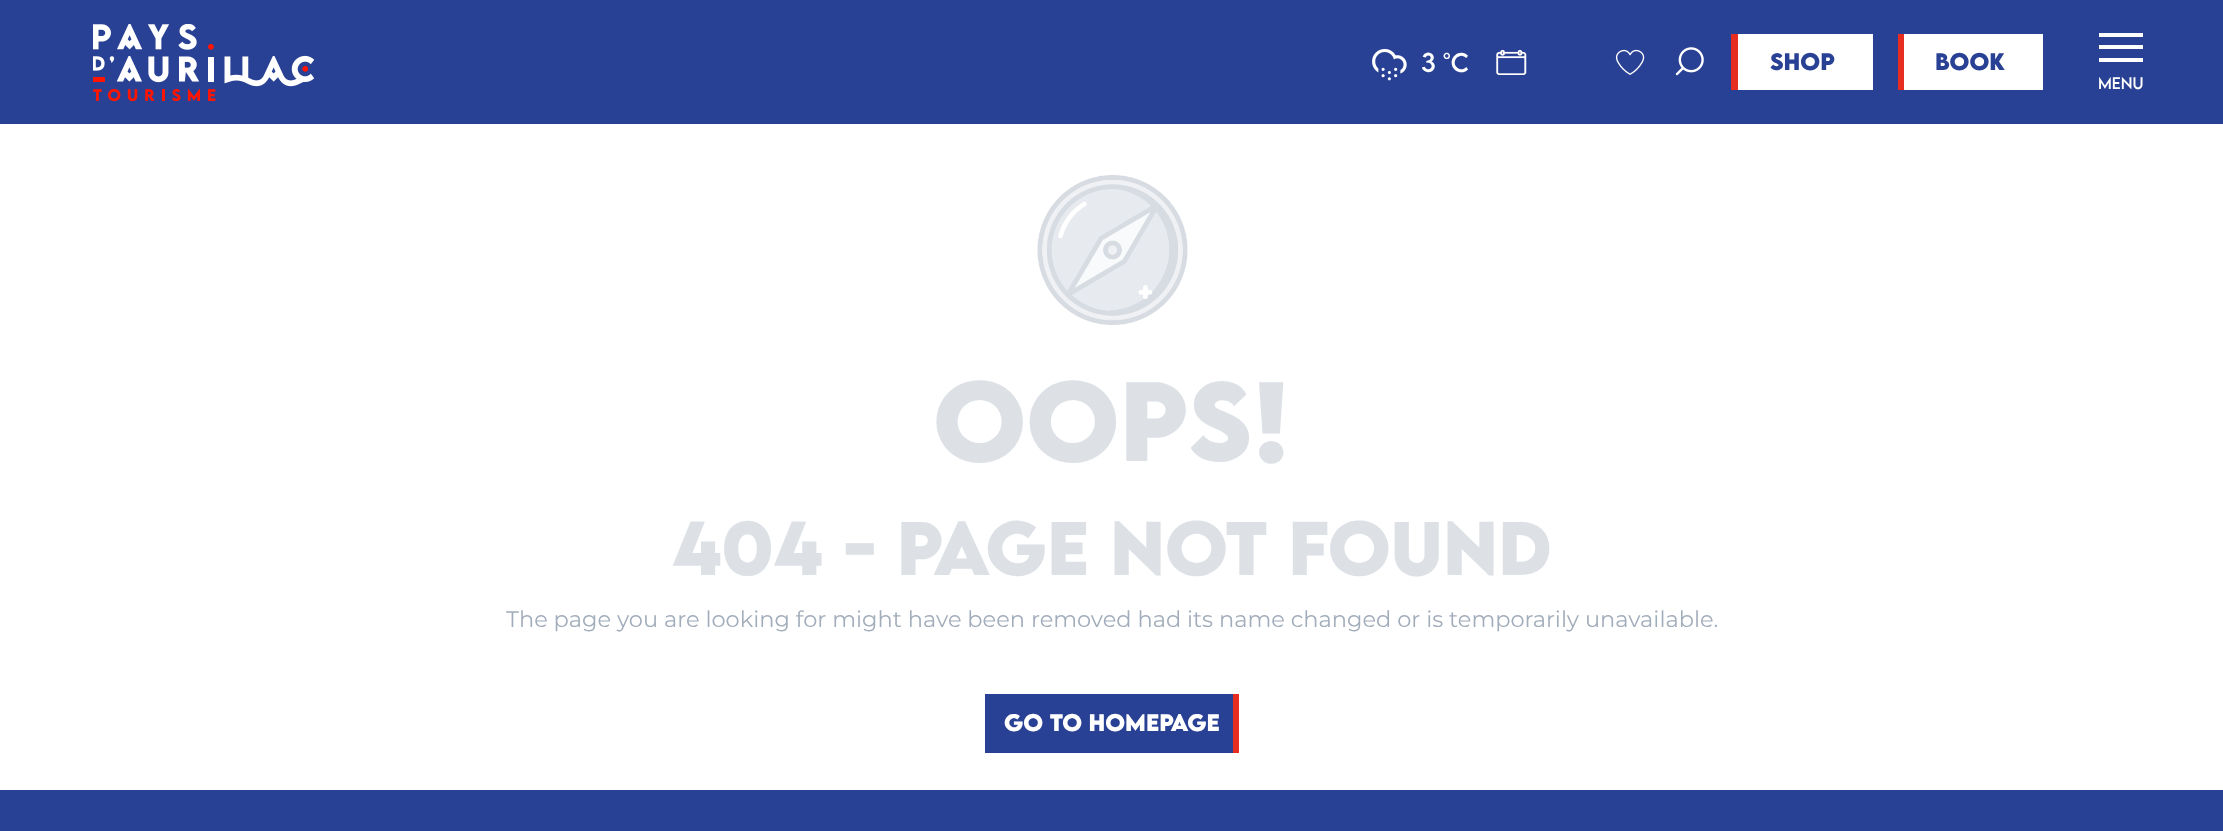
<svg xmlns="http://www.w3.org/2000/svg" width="2223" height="831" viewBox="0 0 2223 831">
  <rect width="100%" height="100%" fill="#fff"/>
  <path d="M0 0h2223v124H0z" fill="#294194"/>
  <image x="93" y="24" width="221" height="77" href="img/1.png"/>
  <image x="1372" y="48" width="35" height="33" href="img/2.png"/>
  <image x="1496" y="49" width="31" height="26" href="img/3.png"/>
  <image x="1615" y="49" width="30" height="26" href="img/4.png"/>
  <image x="1675" y="47" width="29" height="29" href="img/5.png"/>
  <path d="M1731 34h7v56H1731z" fill="#e62d20"/>
  <path d="M1738 34h135v56H1738z" fill="#fff"/>
  <path d="M1898 34h6v56H1898z" fill="#e62d20"/>
  <path d="M1904 34h139v56H1904z" fill="#fff"/>
  <path d="M2099 33h44v4H2099z" fill="#fff"/>
  <path d="M2099 45h44v4H2099z" fill="#fff"/>
  <path d="M2099 58h44v4H2099z" fill="#fff"/>
  <image x="1037" y="175" width="151" height="150" href="img/6.png"/>
  <path d="M985 694h248v59H985z" fill="#294194"/>
  <path d="M1233 694h6v59H1233z" fill="#e62d20"/>
  <path d="M0 790h2223v41H0z" fill="#294194"/>
  <text x="1421" y="72" font-family="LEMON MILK" font-size="24" fill="#fff">3 °C</text>
  <g font-family="LEMON MILK" font-size="21.25" font-weight="bold" fill="#294194">
    <text x="1770" y="70">SHOP</text>
    <text x="1935" y="70">BOOK</text>
  </g>
  <text x="2098" y="89" font-family="LEMON MILK" font-size="15" fill="#fff">MENU</text>
  <text x="933" y="461" font-family="LEMON MILK" font-size="100" font-weight="bold" fill="#dde1e6">OOPS!</text>
  <text x="672" y="575" font-family="LEMON MILK" font-size="67.5" font-weight="bold" fill="#dde1e6">404 - Page not found</text>
  <text x="506" y="627" font-family="Montserrat" font-size="22.5" fill="#a2adbb">The page you are looking for might have been removed had its name changed or is temporarily unavailable.</text>
  <text x="1004" y="731" font-family="LEMON MILK" font-size="21.25" font-weight="bold" fill="#fff">GO TO HOMEPAGE</text>
</svg>
